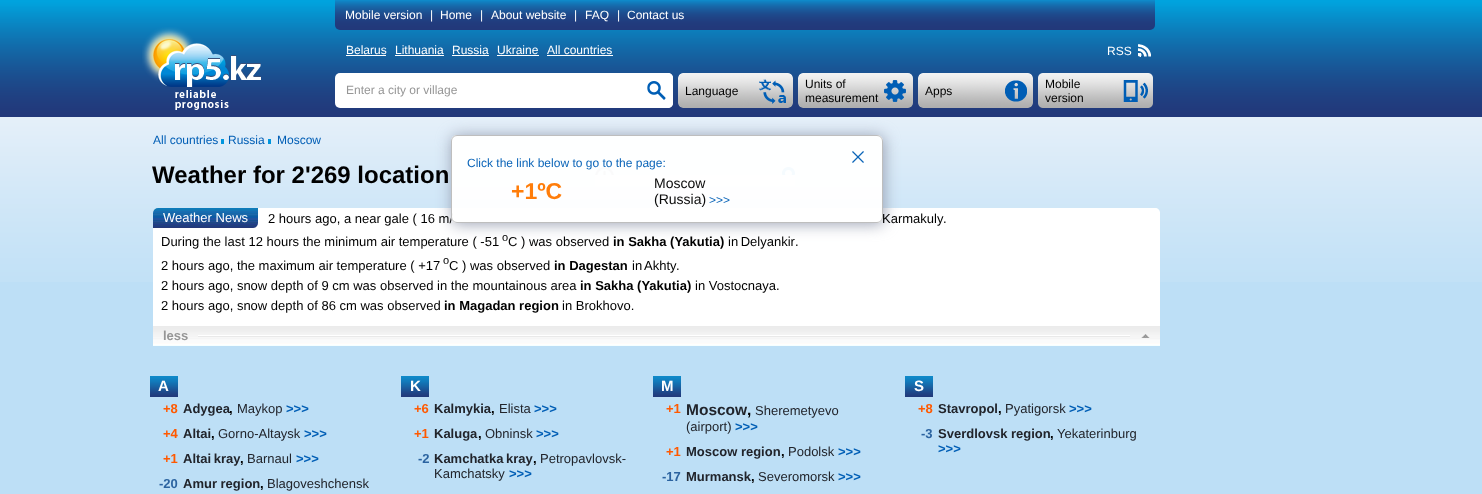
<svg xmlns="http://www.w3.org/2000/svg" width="1482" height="494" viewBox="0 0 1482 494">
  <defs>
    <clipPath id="clip1"><path d="M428 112H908V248H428ZM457 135H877C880.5 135 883 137.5 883 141V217C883 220.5 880.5 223 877 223H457C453.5 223 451 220.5 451 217V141C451 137.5 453.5 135 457 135Z" clip-rule="evenodd"/></clipPath>
  </defs>
  <rect width="100%" height="100%" fill="#bddff6"/>
  <image x="0" y="123" width="1482" height="159" href="img/1.png"/>
  <image x="0" y="0" width="1482" height="123" href="img/2.png"/>
  <image x="335" y="0" width="820" height="30" href="img/3.png"/>
  <image x="142" y="27" width="119" height="83" href="img/4.png"/>
  <path d="M346 55h40v1H346z" fill="#fff"/>
  <path d="M395 55h49v1H395z" fill="#fff"/>
  <path d="M452 55h37v1H452z" fill="#fff"/>
  <path d="M497 55h42v1H497z" fill="#fff"/>
  <path d="M547 55h66v1H547z" fill="#fff"/>
  <image x="1138" y="44" width="13" height="13" href="img/5.png"/>
  <rect x="335" y="73" width="338" height="35" rx="5" fill="#fff"/>
  <image x="647" y="73" width="26" height="35" href="img/6.png"/>
  <image x="678" y="73" width="115" height="35" href="img/7.png"/>
  <image x="798" y="73" width="115" height="35" href="img/8.png"/>
  <image x="918" y="73" width="115" height="35" href="img/9.png"/>
  <image x="1038" y="73" width="115" height="35" href="img/10.png"/>
  <path d="M221 139h3v5H221z" fill="#0096de"/>
  <path d="M268 139h3v5H268z" fill="#0096de"/>
  <image x="595" y="167" width="19" height="19" href="img/11.png"/>
  <image x="782" y="167" width="13" height="18" href="img/12.png"/>
  <path d="M158 208H1155C1158 208 1160 210 1160 213V326H153V213C153 210 155 208 158 208Z" fill="#fff"/>
  <image x="153" y="208" width="105" height="20" href="img/13.png"/>
  <image x="153" y="326" width="1007" height="20" href="img/14.png"/>
  <path d="M153 335h45v2H153z" fill="#f4f4f4"/>
  <image x="1130" y="334" width="30" height="4" href="img/15.png"/>
  <image x="150" y="376" width="28" height="21" href="img/16.png"/>
  <image x="401" y="376" width="28" height="21" href="img/16.png"/>
  <image x="653" y="376" width="28" height="21" href="img/16.png"/>
  <image x="905" y="376" width="28" height="21" href="img/16.png"/>
  <g clip-path="url(#clip1)">
    <rect x="452" y="136" width="432" height="88" rx="6" fill="#969caff5" filter="blur(7.5px)"/>
  </g>
  <g font-family="Liberation Sans" font-size="12" fill="#fff">
    <text x="345" y="19">Mobile version</text>
    <text x="430" y="19">|</text>
    <text x="440" y="19">Home</text>
    <text x="480" y="19">|</text>
    <text x="491" y="19">About website</text>
    <text x="574" y="19">|</text>
    <text x="585" y="19">FAQ</text>
    <text x="617" y="19">|</text>
    <text x="627" y="19">Contact us</text>
    <text x="346" y="54">Belarus</text>
    <text x="395" y="54">Lithuania</text>
    <text x="452" y="54">Russia</text>
    <text x="497" y="54">Ukraine</text>
    <text x="547" y="54">All countries</text>
    <text x="1107" y="55">RSS</text>
  </g>
  <text x="346" y="94" font-family="Liberation Sans" font-size="12" fill="#969696">Enter a city or village</text>
  <g font-family="Liberation Sans" font-size="12" fill="#000">
    <text x="685" y="95">Language</text>
    <text x="805" y="88">Units of</text>
    <text x="805" y="102">measurement</text>
    <text x="925" y="95">Apps</text>
    <text x="1045" y="88">Mobile</text>
    <text x="1045" y="102">version</text>
  </g>
  <g font-family="Liberation Sans" font-size="12" fill="#005eb5">
    <text x="153" y="144">All countries</text>
    <text x="228" y="144">Russia</text>
    <text x="277" y="144">Moscow</text>
  </g>
  <text x="152" y="183" font-family="Liberation Sans" font-size="24" font-weight="bold" fill="#000">Weather for 2'269 location</text>
  <text x="163" y="222" font-family="Liberation Sans" font-size="13" fill="#fff">Weather News</text>
  <g font-family="Liberation Sans" font-size="13" fill="#000">
    <text x="268" y="223">2 hours ago, a near gale ( 16 m/</text>
    <text x="882" y="223">Karmakuly</text>
    <text x="943" y="223">.</text>
    <text x="161" y="246">During the last 12 hours the minimum air temperature ( -51</text>
  </g>
  <text x="502" y="241" font-family="Liberation Sans" font-size="11" fill="#000">o</text>
  <text x="508" y="246" font-family="Liberation Sans" font-size="13" fill="#000">C ) was observed</text>
  <text x="613" y="246" font-family="Liberation Sans" font-size="13" font-weight="bold" fill="#000">in Sakha (Yakutia)</text>
  <g font-family="Liberation Sans" font-size="13" fill="#000">
    <text x="728" y="246" word-spacing="-1">in Delyankir</text>
    <text x="795" y="246">.</text>
    <text x="161" y="270">2 hours ago, the maximum air temperature ( +17</text>
  </g>
  <text x="443" y="264" font-family="Liberation Sans" font-size="11" fill="#000">o</text>
  <text x="449" y="270" font-family="Liberation Sans" font-size="13" fill="#000">C ) was observed</text>
  <text x="554" y="270" font-family="Liberation Sans" font-size="13" font-weight="bold" fill="#000">in Dagestan</text>
  <g font-family="Liberation Sans" font-size="13" fill="#000">
    <text x="632" y="270" word-spacing="-1">in Akhty</text>
    <text x="676" y="270">.</text>
    <text x="161" y="290">2 hours ago, snow depth of 9 cm was observed in the mountainous area</text>
  </g>
  <text x="580" y="290" font-family="Liberation Sans" font-size="13" font-weight="bold" fill="#000">in Sakha (Yakutia)</text>
  <g font-family="Liberation Sans" font-size="13" fill="#000">
    <text x="695" y="290">in Vostocnaya.</text>
    <text x="161" y="310">2 hours ago, snow depth of 86 cm was observed</text>
  </g>
  <text x="444" y="310" font-family="Liberation Sans" font-size="13" font-weight="bold" fill="#000">in Magadan region</text>
  <text x="562" y="310" font-family="Liberation Sans" font-size="13" fill="#000">in Brokhovo.</text>
  <text x="163" y="340" font-family="Liberation Sans" font-size="13" font-weight="bold" fill="#969696">less</text>
  <text x="158" y="391" font-family="Liberation Sans" font-size="15" font-weight="bold" fill="#fff">A</text>
  <text x="163" y="413" font-family="Liberation Sans" font-size="13" font-weight="bold" fill="#ff5900">+8</text>
  <text x="183" y="413" font-family="Liberation Sans" font-size="13" font-weight="bold" fill="#21242b">Adygea</text>
  <text x="229" y="413" font-family="Liberation Sans" font-size="13" font-weight="bold" fill="#000">,</text>
  <text x="237" y="413" font-family="Liberation Sans" font-size="13" fill="#21242b">Maykop</text>
  <text x="286" y="413" font-family="Liberation Sans" font-size="13" font-weight="bold" fill="#005eb5">&gt;&gt;&gt;</text>
  <text x="163" y="438" font-family="Liberation Sans" font-size="13" font-weight="bold" fill="#ff5900">+4</text>
  <text x="183" y="438" font-family="Liberation Sans" font-size="13" font-weight="bold" fill="#21242b">Altai</text>
  <text x="211" y="438" font-family="Liberation Sans" font-size="13" font-weight="bold" fill="#000">,</text>
  <text x="218" y="438" font-family="Liberation Sans" font-size="13" fill="#21242b">Gorno-Altaysk</text>
  <text x="304" y="438" font-family="Liberation Sans" font-size="13" font-weight="bold" fill="#005eb5">&gt;&gt;&gt;</text>
  <text x="163" y="463" font-family="Liberation Sans" font-size="13" font-weight="bold" fill="#ff5900">+1</text>
  <text x="183" y="463" word-spacing="-1" font-family="Liberation Sans" font-size="13" font-weight="bold" fill="#21242b">Altai kray</text>
  <text x="240" y="463" font-family="Liberation Sans" font-size="13" font-weight="bold" fill="#000">,</text>
  <text x="247" y="463" font-family="Liberation Sans" font-size="13" fill="#21242b">Barnaul</text>
  <text x="296" y="463" font-family="Liberation Sans" font-size="13" font-weight="bold" fill="#005eb5">&gt;&gt;&gt;</text>
  <text x="159" y="488" font-family="Liberation Sans" font-size="13" font-weight="bold" fill="#2b63a0">-20</text>
  <text x="183" y="488" font-family="Liberation Sans" font-size="13" font-weight="bold" fill="#21242b">Amur region</text>
  <text x="260" y="488" font-family="Liberation Sans" font-size="13" font-weight="bold" fill="#000">,</text>
  <text x="267" y="488" font-family="Liberation Sans" font-size="13" fill="#21242b">Blagoveshchensk</text>
  <text x="410" y="391" font-family="Liberation Sans" font-size="15" font-weight="bold" fill="#fff">K</text>
  <text x="414" y="413" font-family="Liberation Sans" font-size="13" font-weight="bold" fill="#ff5900">+6</text>
  <text x="434" y="413" font-family="Liberation Sans" font-size="13" font-weight="bold" fill="#21242b">Kalmykia</text>
  <text x="491" y="413" font-family="Liberation Sans" font-size="13" font-weight="bold" fill="#000">,</text>
  <text x="499" y="413" font-family="Liberation Sans" font-size="13" fill="#21242b">Elista</text>
  <text x="534" y="413" font-family="Liberation Sans" font-size="13" font-weight="bold" fill="#005eb5">&gt;&gt;&gt;</text>
  <text x="414" y="438" font-family="Liberation Sans" font-size="13" font-weight="bold" fill="#ff5900">+1</text>
  <text x="434" y="438" font-family="Liberation Sans" font-size="13" font-weight="bold" fill="#21242b">Kaluga</text>
  <text x="478" y="438" font-family="Liberation Sans" font-size="13" font-weight="bold" fill="#000">,</text>
  <text x="485" y="438" font-family="Liberation Sans" font-size="13" fill="#21242b">Obninsk</text>
  <text x="536" y="438" font-family="Liberation Sans" font-size="13" font-weight="bold" fill="#005eb5">&gt;&gt;&gt;</text>
  <text x="418" y="463" font-family="Liberation Sans" font-size="13" font-weight="bold" fill="#2b63a0">-2</text>
  <text x="434" y="463" word-spacing="-1" font-family="Liberation Sans" font-size="13" font-weight="bold" fill="#21242b">Kamchatka kray</text>
  <text x="533" y="463" font-family="Liberation Sans" font-size="13" font-weight="bold" fill="#000">,</text>
  <g font-family="Liberation Sans" font-size="13" fill="#21242b">
    <text x="540" y="463">Petropavlovsk-</text>
    <text x="434" y="478">Kamchatsky</text>
  </g>
  <text x="509" y="478" font-family="Liberation Sans" font-size="13" font-weight="bold" fill="#005eb5">&gt;&gt;&gt;</text>
  <text x="661" y="391" font-family="Liberation Sans" font-size="15" font-weight="bold" fill="#fff">M</text>
  <text x="666" y="413" font-family="Liberation Sans" font-size="13" font-weight="bold" fill="#ff5900">+1</text>
  <text x="686" y="415" font-family="Liberation Sans" font-size="15.5" font-weight="bold" fill="#21242b">Moscow</text>
  <text x="747" y="415" font-family="Liberation Sans" font-size="15.5" font-weight="bold" fill="#000">,</text>
  <g font-family="Liberation Sans" font-size="13" fill="#21242b">
    <text x="755" y="415">Sheremetyevo</text>
    <text x="686" y="431">(airport)</text>
  </g>
  <text x="735" y="431" font-family="Liberation Sans" font-size="13" font-weight="bold" fill="#005eb5">&gt;&gt;&gt;</text>
  <text x="666" y="456" font-family="Liberation Sans" font-size="13" font-weight="bold" fill="#ff5900">+1</text>
  <text x="686" y="456" font-family="Liberation Sans" font-size="13" font-weight="bold" fill="#21242b">Moscow region</text>
  <text x="781" y="456" font-family="Liberation Sans" font-size="13" font-weight="bold" fill="#000">,</text>
  <text x="788" y="456" font-family="Liberation Sans" font-size="13" fill="#21242b">Podolsk</text>
  <text x="838" y="456" font-family="Liberation Sans" font-size="13" font-weight="bold" fill="#005eb5">&gt;&gt;&gt;</text>
  <text x="662" y="481" font-family="Liberation Sans" font-size="13" font-weight="bold" fill="#2b63a0">-17</text>
  <text x="686" y="481" font-family="Liberation Sans" font-size="13" font-weight="bold" fill="#21242b">Murmansk</text>
  <text x="751" y="481" font-family="Liberation Sans" font-size="13" font-weight="bold" fill="#000">,</text>
  <text x="758" y="481" font-family="Liberation Sans" font-size="13" fill="#21242b">Severomorsk</text>
  <text x="838" y="481" font-family="Liberation Sans" font-size="13" font-weight="bold" fill="#005eb5">&gt;&gt;&gt;</text>
  <text x="914" y="391" font-family="Liberation Sans" font-size="15" font-weight="bold" fill="#fff">S</text>
  <text x="918" y="413" font-family="Liberation Sans" font-size="13" font-weight="bold" fill="#ff5900">+8</text>
  <text x="938" y="413" font-family="Liberation Sans" font-size="13" font-weight="bold" fill="#21242b">Stavropol</text>
  <text x="998" y="413" font-family="Liberation Sans" font-size="13" font-weight="bold" fill="#000">,</text>
  <text x="1005" y="413" font-family="Liberation Sans" font-size="13" fill="#21242b">Pyatigorsk</text>
  <text x="1069" y="413" font-family="Liberation Sans" font-size="13" font-weight="bold" fill="#005eb5">&gt;&gt;&gt;</text>
  <text x="921" y="438" font-family="Liberation Sans" font-size="13" font-weight="bold" fill="#2b63a0">-3</text>
  <text x="938" y="438" font-family="Liberation Sans" font-size="13" font-weight="bold" fill="#21242b">Sverdlovsk region</text>
  <text x="1050" y="438" font-family="Liberation Sans" font-size="13" font-weight="bold" fill="#000">,</text>
  <text x="1057" y="438" font-family="Liberation Sans" font-size="13" fill="#21242b">Yekaterinburg</text>
  <text x="938" y="453" font-family="Liberation Sans" font-size="13" font-weight="bold" fill="#005eb5">&gt;&gt;&gt;</text>
  <rect x="451" y="135" width="432" height="88" rx="6" fill="#fffffff5"/>
  <rect x="451.5" y="135.5" width="431" height="87" rx="5.5" fill="none" stroke="#bbbbbbf5"/>
  <text x="467" y="167" font-family="Liberation Sans" font-size="12" fill="#0a64b8">Click the link below to go to the page:</text>
  <image x="852" y="151" width="12" height="12" href="img/17.png"/>
  <path d="M595 175h200v11H595z" fill="#fffffff5"/>
  <text x="511" y="199" font-family="Liberation Sans" font-size="23" font-weight="bold" fill="#ff7d0a">+1ºC</text>
  <g font-family="Liberation Sans" font-size="14" fill="#0a0a0a">
    <text x="654" y="188">Moscow</text>
    <text x="654" y="204">(Russia)</text>
  </g>
  <text x="709" y="204" font-family="Liberation Sans" font-size="12" fill="#0a64b8">&gt;&gt;&gt;</text>
</svg>
